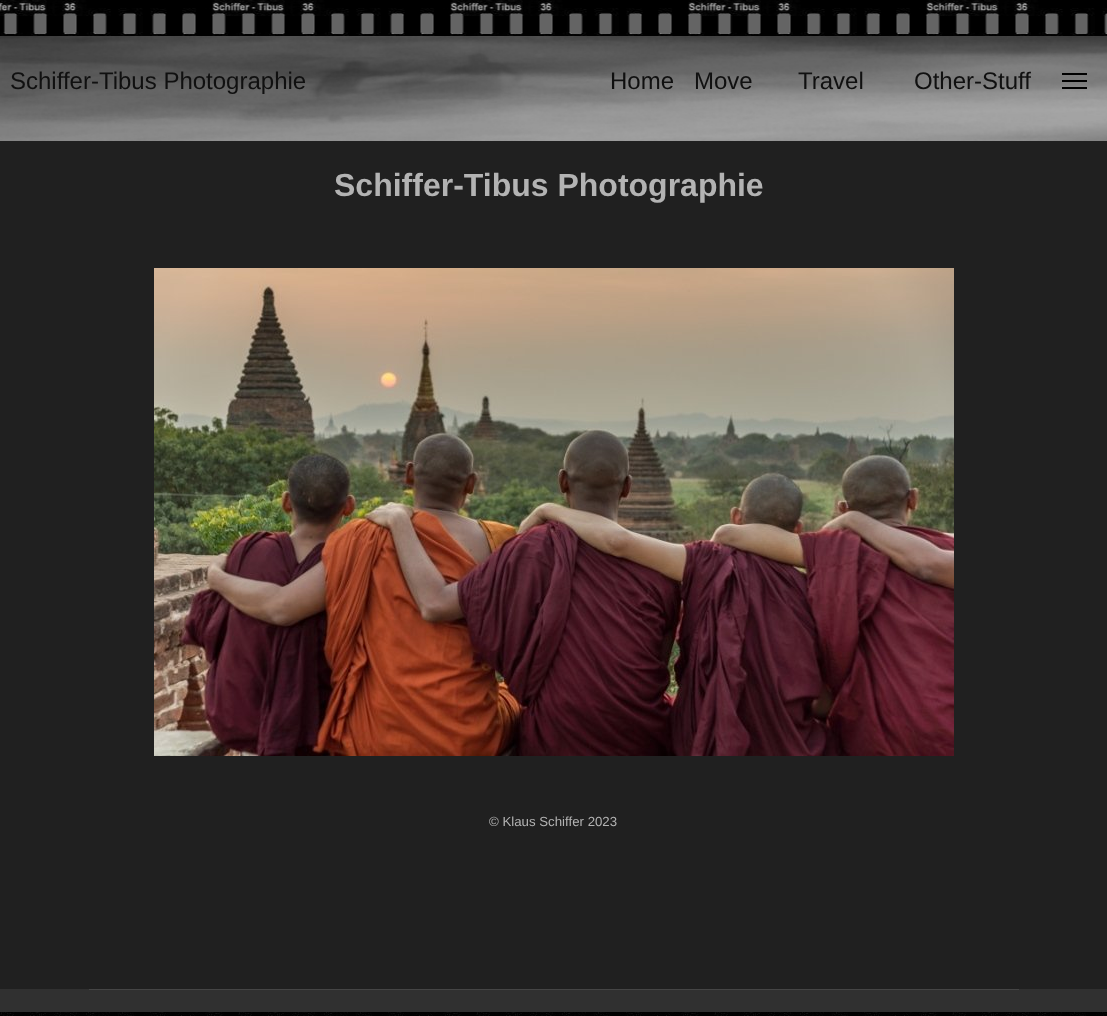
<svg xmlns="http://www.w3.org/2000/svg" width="1107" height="1016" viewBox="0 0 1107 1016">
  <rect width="100%" height="100%" fill="#fff"/>
  <image x="0" y="0" width="1107" height="36" href="img/1.png"/>
  <image x="0" y="36" width="1107" height="105" href="img/2.png"/>
  <path d="M1062 73h25v2H1062z" fill="#000"/>
  <path d="M1062 80h25v2H1062z" fill="#000"/>
  <path d="M1062 87h25v2H1062z" fill="#000"/>
  <path d="M0 141h1107v848H0z" fill="#202020"/>
  <image x="154" y="268" width="800" height="488" href="img/3.png"/>
  <path d="M0 989h1107v23H0z" fill="#303030"/>
  <image x="0" y="1012" width="1107" height="4" href="img/4.png"/>
  <path d="M89 989h930v1H89z" fill="#454545"/>
  <g font-family="Liberation Sans" font-size="24" fill="#101010">
    <text x="10" y="89">Schiffer-Tibus Photographie</text>
    <text x="610" y="89">Home</text>
    <text x="694" y="89">Move</text>
    <text x="798" y="89">Travel</text>
    <text x="914" y="89">Other-Stuff</text>
  </g>
  <text x="334" y="196" font-family="Liberation Sans" font-size="32" font-weight="bold" fill="#b3b3b3">Schiffer-Tibus Photographie</text>
  <text x="489" y="826" font-family="Liberation Sans" font-size="13.25" fill="#b3b3b3">© Klaus Schiffer 2023</text>
</svg>
